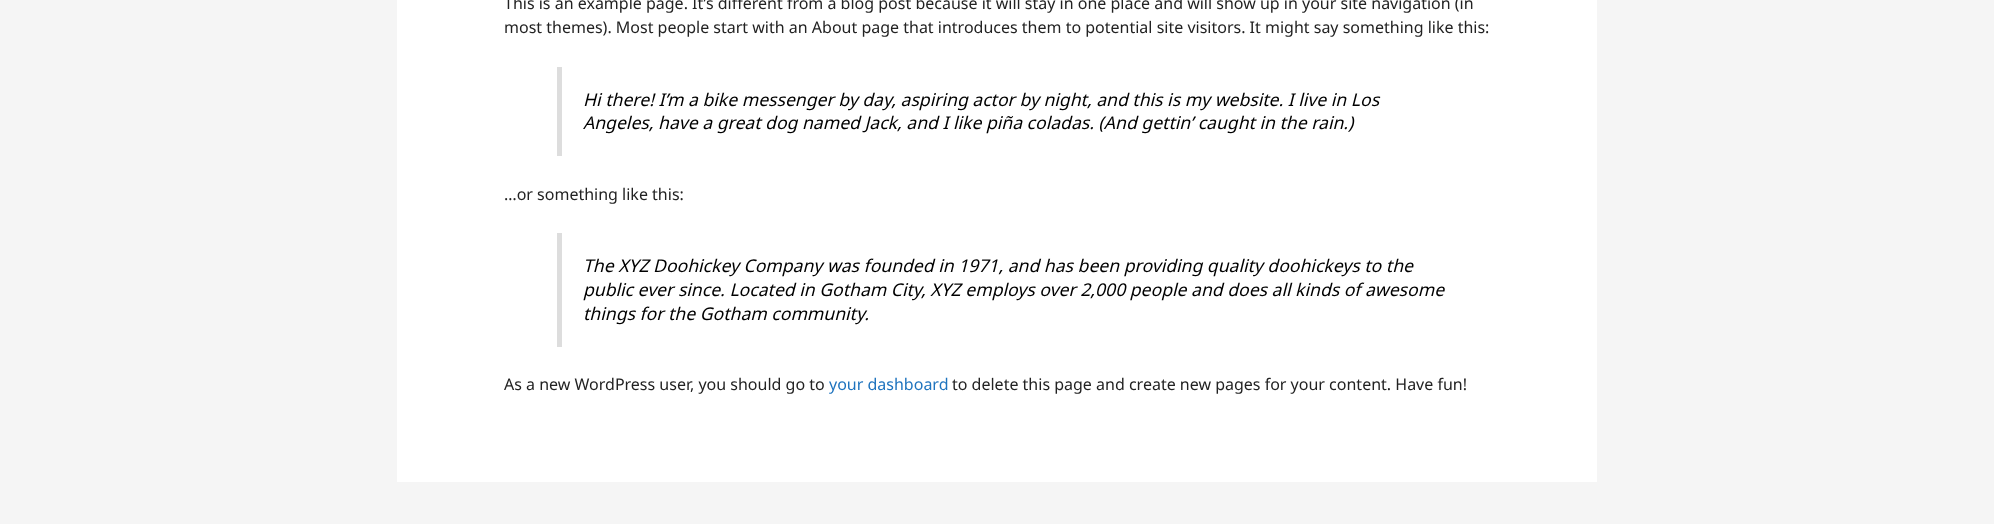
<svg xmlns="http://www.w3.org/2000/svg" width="1994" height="524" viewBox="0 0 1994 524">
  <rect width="100%" height="100%" fill="#f5f5f5"/>
  <path d="M397 0h1200v482H397z" fill="#fff"/>
  <path d="M557 67h5v89H557z" fill="#ddd"/>
  <path d="M557 233h5v114H557z" fill="#ddd"/>
  <g font-family="Noto Sans" font-size="16" fill="#222">
    <text x="504" y="9">This is an example page. It’s different from a blog post because it will stay in one place and will show up in your site navigation (in</text>
    <text x="504" y="33">most themes). Most people start with an About page that introduces them to potential site visitors. It might say something like this:</text>
  </g>
  <g font-family="Noto Sans" font-size="17.6" font-style="italic" fill="#000">
    <text x="583" y="106">Hi there! I’m a bike messenger by day, aspiring actor by night, and this is my website. I live in Los</text>
    <text x="583" y="129">Angeles, have a great dog named Jack, and I like piña coladas. (And gettin’ caught in the rain.)</text>
  </g>
  <text x="504" y="200" font-family="Noto Sans" font-size="16" fill="#222">…or something like this:</text>
  <g font-family="Noto Sans" font-size="17.6" font-style="italic" fill="#000">
    <text x="583" y="272">The XYZ Doohickey Company was founded in 1971, and has been providing quality doohickeys to the</text>
    <text x="583" y="296">public ever since. Located in Gotham City, XYZ employs over 2,000 people and does all kinds of awesome</text>
    <text x="583" y="320">things for the Gotham community.</text>
  </g>
  <text x="504" y="390" font-family="Noto Sans" font-size="16" fill="#222">As a new WordPress user, you should go to</text>
  <text x="829" y="390" font-family="Noto Sans" font-size="16" fill="#1e73be">your dashboard</text>
  <text x="952" y="390" font-family="Noto Sans" font-size="16" fill="#222">to delete this page and create new pages for your content. Have fun!</text>
</svg>
